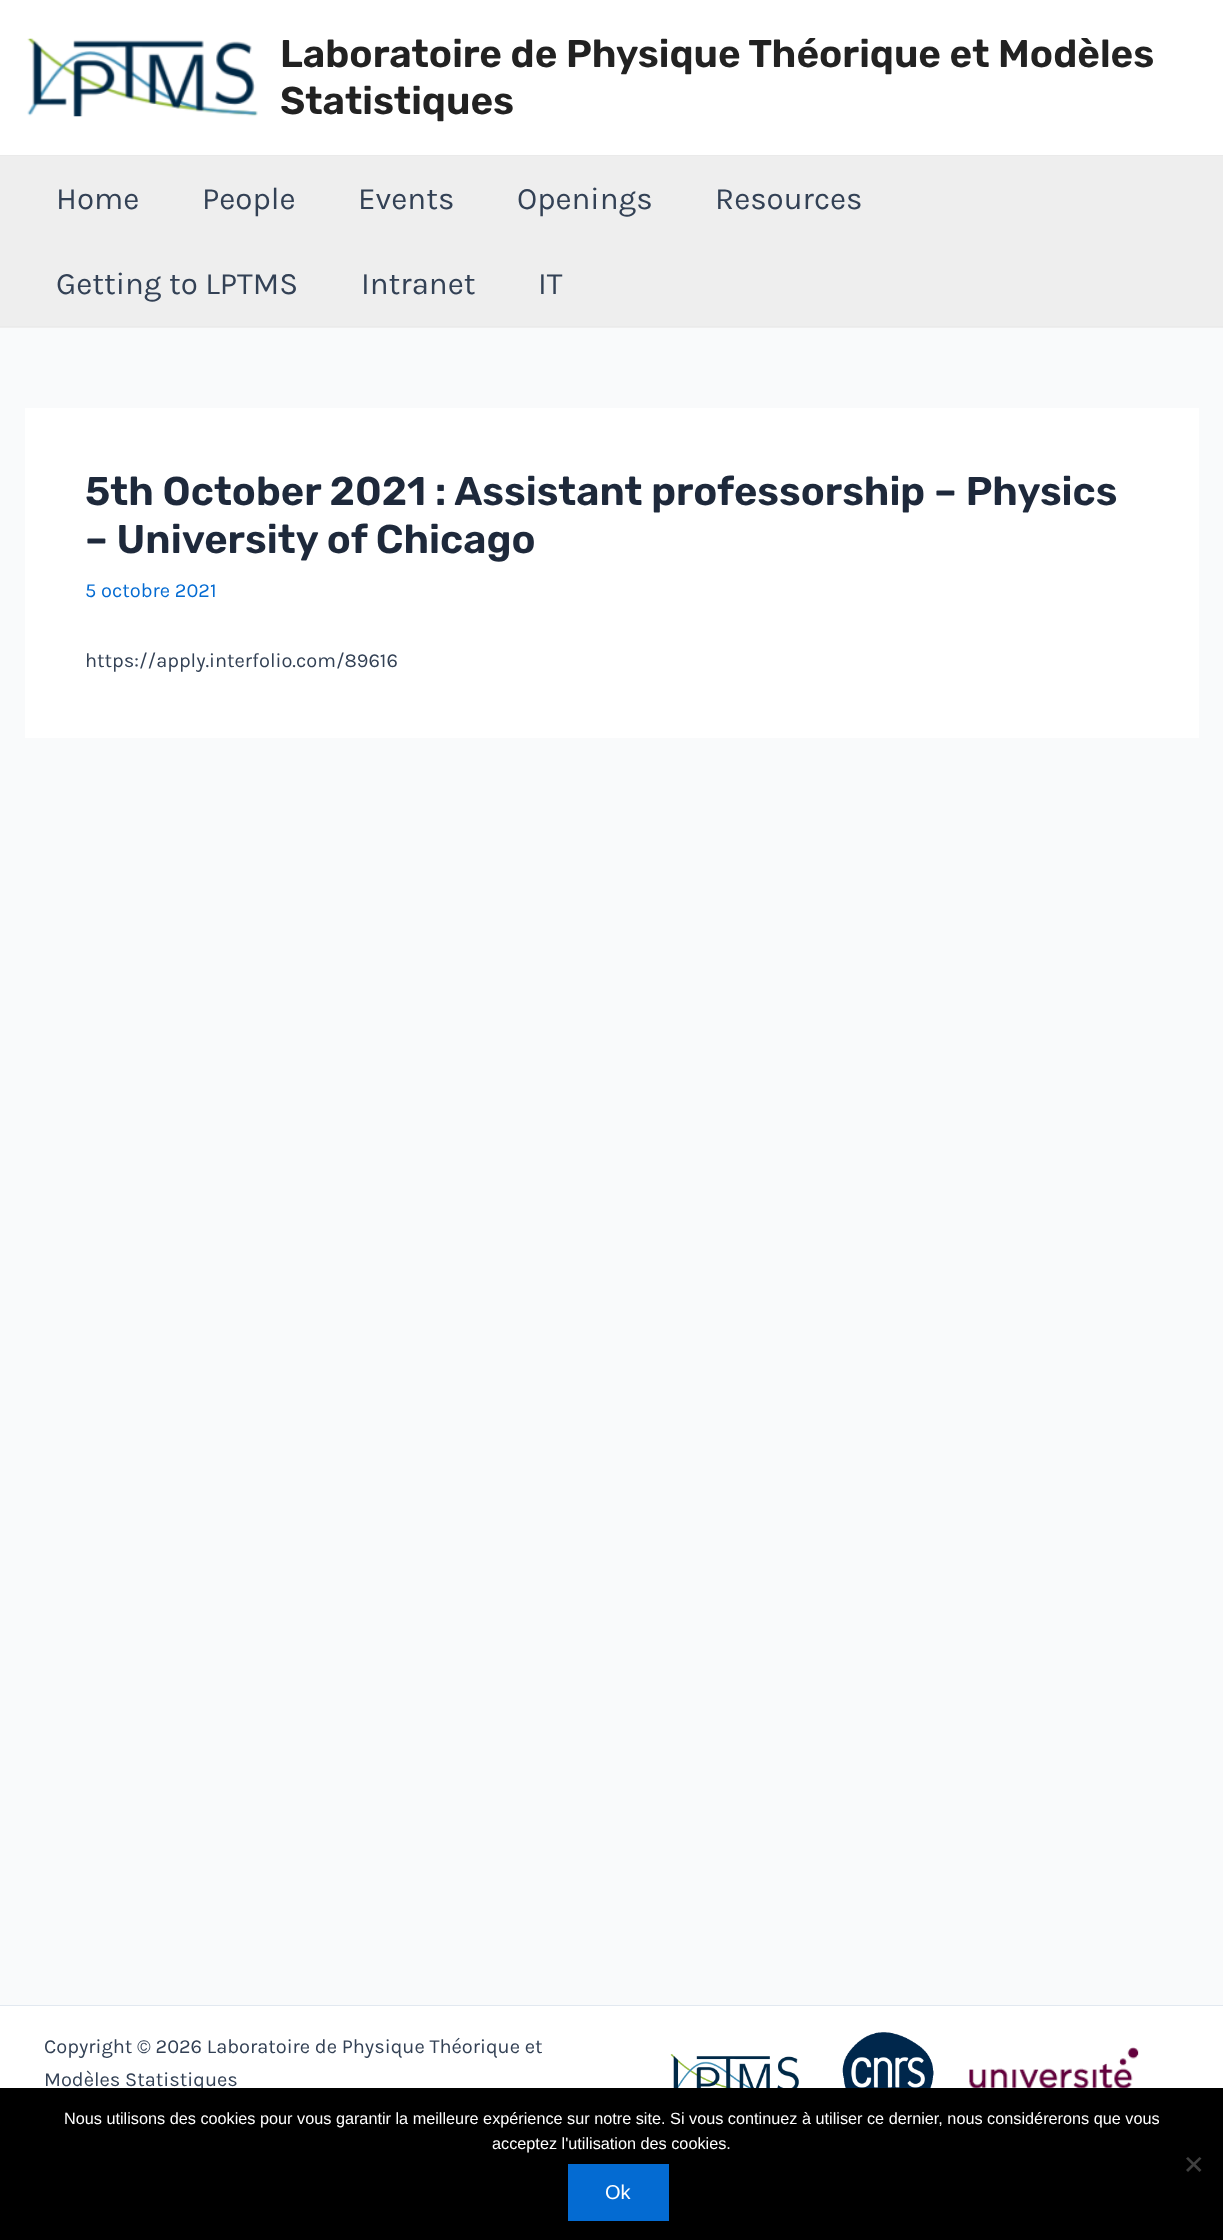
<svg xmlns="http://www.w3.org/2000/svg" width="1223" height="2240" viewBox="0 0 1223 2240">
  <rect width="100%" height="100%" fill="#f9fafb"/>
  <path d="M0 0h1223v155H0z" fill="#fff"/>
  <path d="M0 155h1223v1H0z" fill="#eaeaea"/>
  <image x="27" y="38" width="231" height="79" href="img/1.png"/>
  <path d="M0 156h1223v172H0z" fill="#eee"/>
  <path d="M0 326h1223v1H0z" fill="#eaeaea"/>
  <path d="M25 408h1174v330H25z" fill="#fff"/>
  <path d="M0 2006h1223v82H0z" fill="#fff"/>
  <path d="M0 2005h1223v1H0z" fill="#e2e8f0"/>
  <image x="670" y="2054" width="130" height="34" href="img/2.png"/>
  <image x="842" y="2032" width="92" height="56" href="img/3.png"/>
  <image x="969" y="2047" width="170" height="41" href="img/4.png"/>
  <g font-family="Rubik" font-size="38.75" font-weight="600" fill="#222">
    <text x="280" y="67">Laboratoire de Physique Théorique et Modèles</text>
    <text x="280" y="114">Statistiques</text>
  </g>
  <g font-family="Karla" font-size="31.25" fill="#334155">
    <text x="56" y="209">Home</text>
    <text x="202" y="209">People</text>
    <text x="358" y="209">Events</text>
    <text x="517" y="209">Openings</text>
    <text x="715" y="209">Resources</text>
    <text x="56" y="294">Getting to LPTMS</text>
    <text x="361" y="294">Intranet</text>
    <text x="538" y="294">IT</text>
  </g>
  <g font-family="Rubik" font-size="40" font-weight="600" fill="#1e293b">
    <text x="85" y="505">5th October 2021 : Assistant professorship – Physics</text>
    <text x="85" y="553">– University of Chicago</text>
  </g>
  <text x="85" y="597" font-family="Karla" font-size="20" fill="#046bd2">5 octobre 2021</text>
  <g font-family="Karla" font-size="20" fill="#334155">
    <text x="85" y="667">https://apply.interfolio.com/89616</text>
    <text x="44" y="2053">Copyright © 2026 Laboratoire de Physique Théorique et</text>
    <text x="44" y="2086">Modèles Statistiques</text>
  </g>
  <path d="M0 2088h1223v152H0z" fill="#000"/>
  <g font-family="Liberation Sans" font-size="16.25" fill="#fff">
    <text x="64" y="2124">Nous utilisons des cookies pour vous garantir la meilleure expérience sur notre site. Si vous continuez à utiliser ce dernier, nous considérerons que vous</text>
    <text x="492" y="2149">acceptez l'utilisation des cookies.</text>
  </g>
  <path d="M1199.5 2157L1201.5 2158.5L1188 2172L1186 2170Z" fill="#404040"/>
  <path d="M1186 2158.5L1188 2157L1201.5 2170L1199.5 2172Z" fill="#404040"/>
  <path d="M568 2164h101v57H568z" fill="#046bd2"/>
  <text x="605" y="2199" font-family="Liberation Sans" font-size="20" fill="#fff">Ok</text>
</svg>
